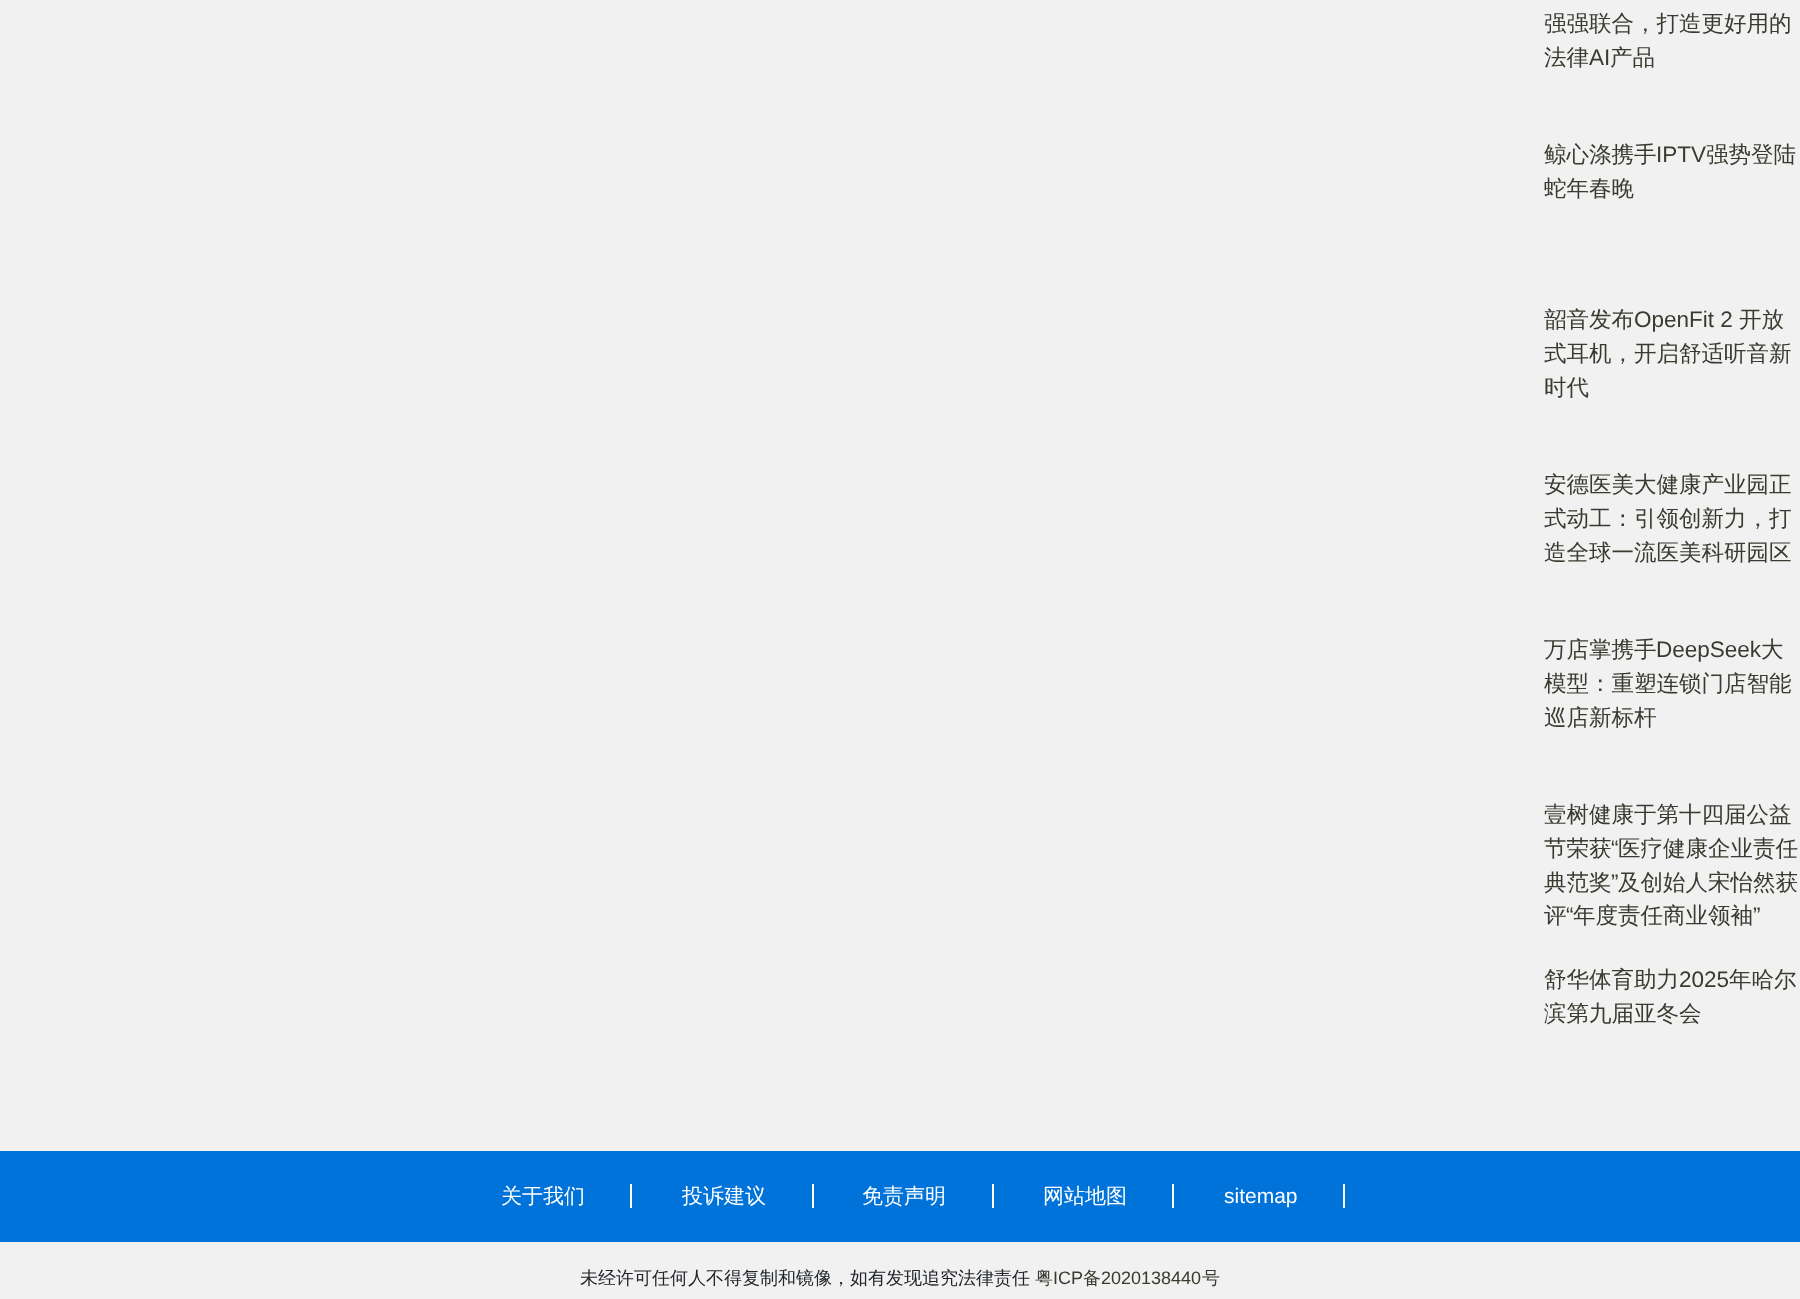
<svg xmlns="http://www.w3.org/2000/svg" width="1800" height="1299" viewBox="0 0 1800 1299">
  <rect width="100%" height="100%" fill="#f1f1f1"/>
  <path d="M0 1151h1800v91H0z" fill="#0073db"/>
  <path d="M630 1184h2v24H630z" fill="#fff"/>
  <path d="M812 1184h2v24H812z" fill="#fff"/>
  <path d="M992 1184h2v24H992z" fill="#fff"/>
  <path d="M1172 1184h2v24H1172z" fill="#fff"/>
  <path d="M1343 1184h2v24H1343z" fill="#fff"/>
  <g font-family="WenQuanYi Zen Hei" font-size="22.5" font-weight="500" fill="#3a3a31">
    <text x="1544" y="31">强强联合，打造更好用的</text>
    <text x="1544" y="65">法律</text>
  </g>
  <text x="1589" y="65" font-family="Liberation Sans" font-size="22.5" fill="#3a3a31">AI</text>
  <g font-family="WenQuanYi Zen Hei" font-size="22.5" font-weight="500" fill="#3a3a31">
    <text x="1610" y="65">产品</text>
    <text x="1544" y="162">鲸心涤携手</text>
  </g>
  <text x="1656" y="162" font-family="Liberation Sans" font-size="22.5" fill="#3a3a31">IPTV</text>
  <g font-family="WenQuanYi Zen Hei" font-size="22.5" font-weight="500" fill="#3a3a31">
    <text x="1706" y="162">强势登陆</text>
    <text x="1544" y="196">蛇年春晚</text>
    <text x="1544" y="327">韶音发布</text>
  </g>
  <text x="1634" y="327" font-family="Liberation Sans" font-size="22.5" fill="#3a3a31">OpenFit 2</text>
  <g font-family="WenQuanYi Zen Hei" font-size="22.5" font-weight="500" fill="#3a3a31">
    <text x="1739" y="327">开放</text>
    <text x="1544" y="361">式耳机，开启舒适听音新</text>
    <text x="1544" y="395">时代</text>
    <text x="1544" y="492">安德医美大健康产业园正</text>
    <text x="1544" y="526">式动工：引领创新力，打</text>
    <text x="1544" y="560">造全球一流医美科研园区</text>
    <text x="1544" y="657">万店掌携手</text>
  </g>
  <text x="1656" y="657" font-family="Liberation Sans" font-size="22.5" fill="#3a3a31">DeepSeek</text>
  <g font-family="WenQuanYi Zen Hei" font-size="22.5" font-weight="500" fill="#3a3a31">
    <text x="1761" y="657">大</text>
    <text x="1544" y="691">模型：重塑连锁门店智能</text>
    <text x="1544" y="725">巡店新标杆</text>
    <text x="1544" y="822">壹树健康于第十四届公益</text>
    <text x="1544" y="856">节荣获</text>
  </g>
  <text x="1611" y="856" font-family="Liberation Sans" font-size="22.5" fill="#3a3a31">“</text>
  <g font-family="WenQuanYi Zen Hei" font-size="22.5" font-weight="500" fill="#3a3a31">
    <text x="1618" y="856">医疗健康企业责任</text>
    <text x="1544" y="890">典范奖</text>
  </g>
  <text x="1611" y="890" font-family="Liberation Sans" font-size="22.5" fill="#3a3a31">”</text>
  <g font-family="WenQuanYi Zen Hei" font-size="22.5" font-weight="500" fill="#3a3a31">
    <text x="1618" y="890">及创始人宋怡然获</text>
    <text x="1544" y="923">评</text>
  </g>
  <text x="1566" y="923" font-family="Liberation Sans" font-size="22.5" fill="#3a3a31">“</text>
  <text x="1573" y="923" font-family="WenQuanYi Zen Hei" font-size="22.5" font-weight="500" fill="#3a3a31">年度责任商业领袖</text>
  <text x="1753" y="923" font-family="Liberation Sans" font-size="22.5" fill="#3a3a31">”</text>
  <text x="1544" y="987" font-family="WenQuanYi Zen Hei" font-size="22.5" font-weight="500" fill="#3a3a31">舒华体育助力</text>
  <text x="1679" y="987" font-family="Liberation Sans" font-size="22.5" fill="#3a3a31">2025</text>
  <g font-family="WenQuanYi Zen Hei" font-size="22.5" font-weight="500" fill="#3a3a31">
    <text x="1729" y="987">年哈尔</text>
    <text x="1544" y="1021">滨第九届亚冬会</text>
  </g>
  <g font-family="WenQuanYi Zen Hei" font-size="21" font-weight="500" fill="#fff">
    <text x="501" y="1203">关于我们</text>
    <text x="682" y="1203">投诉建议</text>
    <text x="862" y="1203">免责声明</text>
    <text x="1043" y="1203">网站地图</text>
  </g>
  <text x="1224" y="1203" font-family="Liberation Sans" font-size="21" fill="#fff">sitemap</text>
  <text x="580" y="1284" font-family="WenQuanYi Zen Hei" font-size="18" font-weight="500" fill="#212529">未经许可任何人不得复制和镜像，如有发现追究法律责任</text>
  <text x="1035" y="1284" font-family="WenQuanYi Zen Hei" font-size="18" font-weight="500" fill="#3a3a31">粤</text>
  <text x="1053" y="1284" font-family="Liberation Sans" font-size="18" fill="#3a3a31">ICP</text>
  <text x="1083" y="1284" font-family="WenQuanYi Zen Hei" font-size="18" font-weight="500" fill="#3a3a31">备</text>
  <text x="1101" y="1284" font-family="Liberation Sans" font-size="18" fill="#3a3a31">2020138440</text>
  <text x="1202" y="1284" font-family="WenQuanYi Zen Hei" font-size="18" font-weight="500" fill="#3a3a31">号</text>
</svg>
